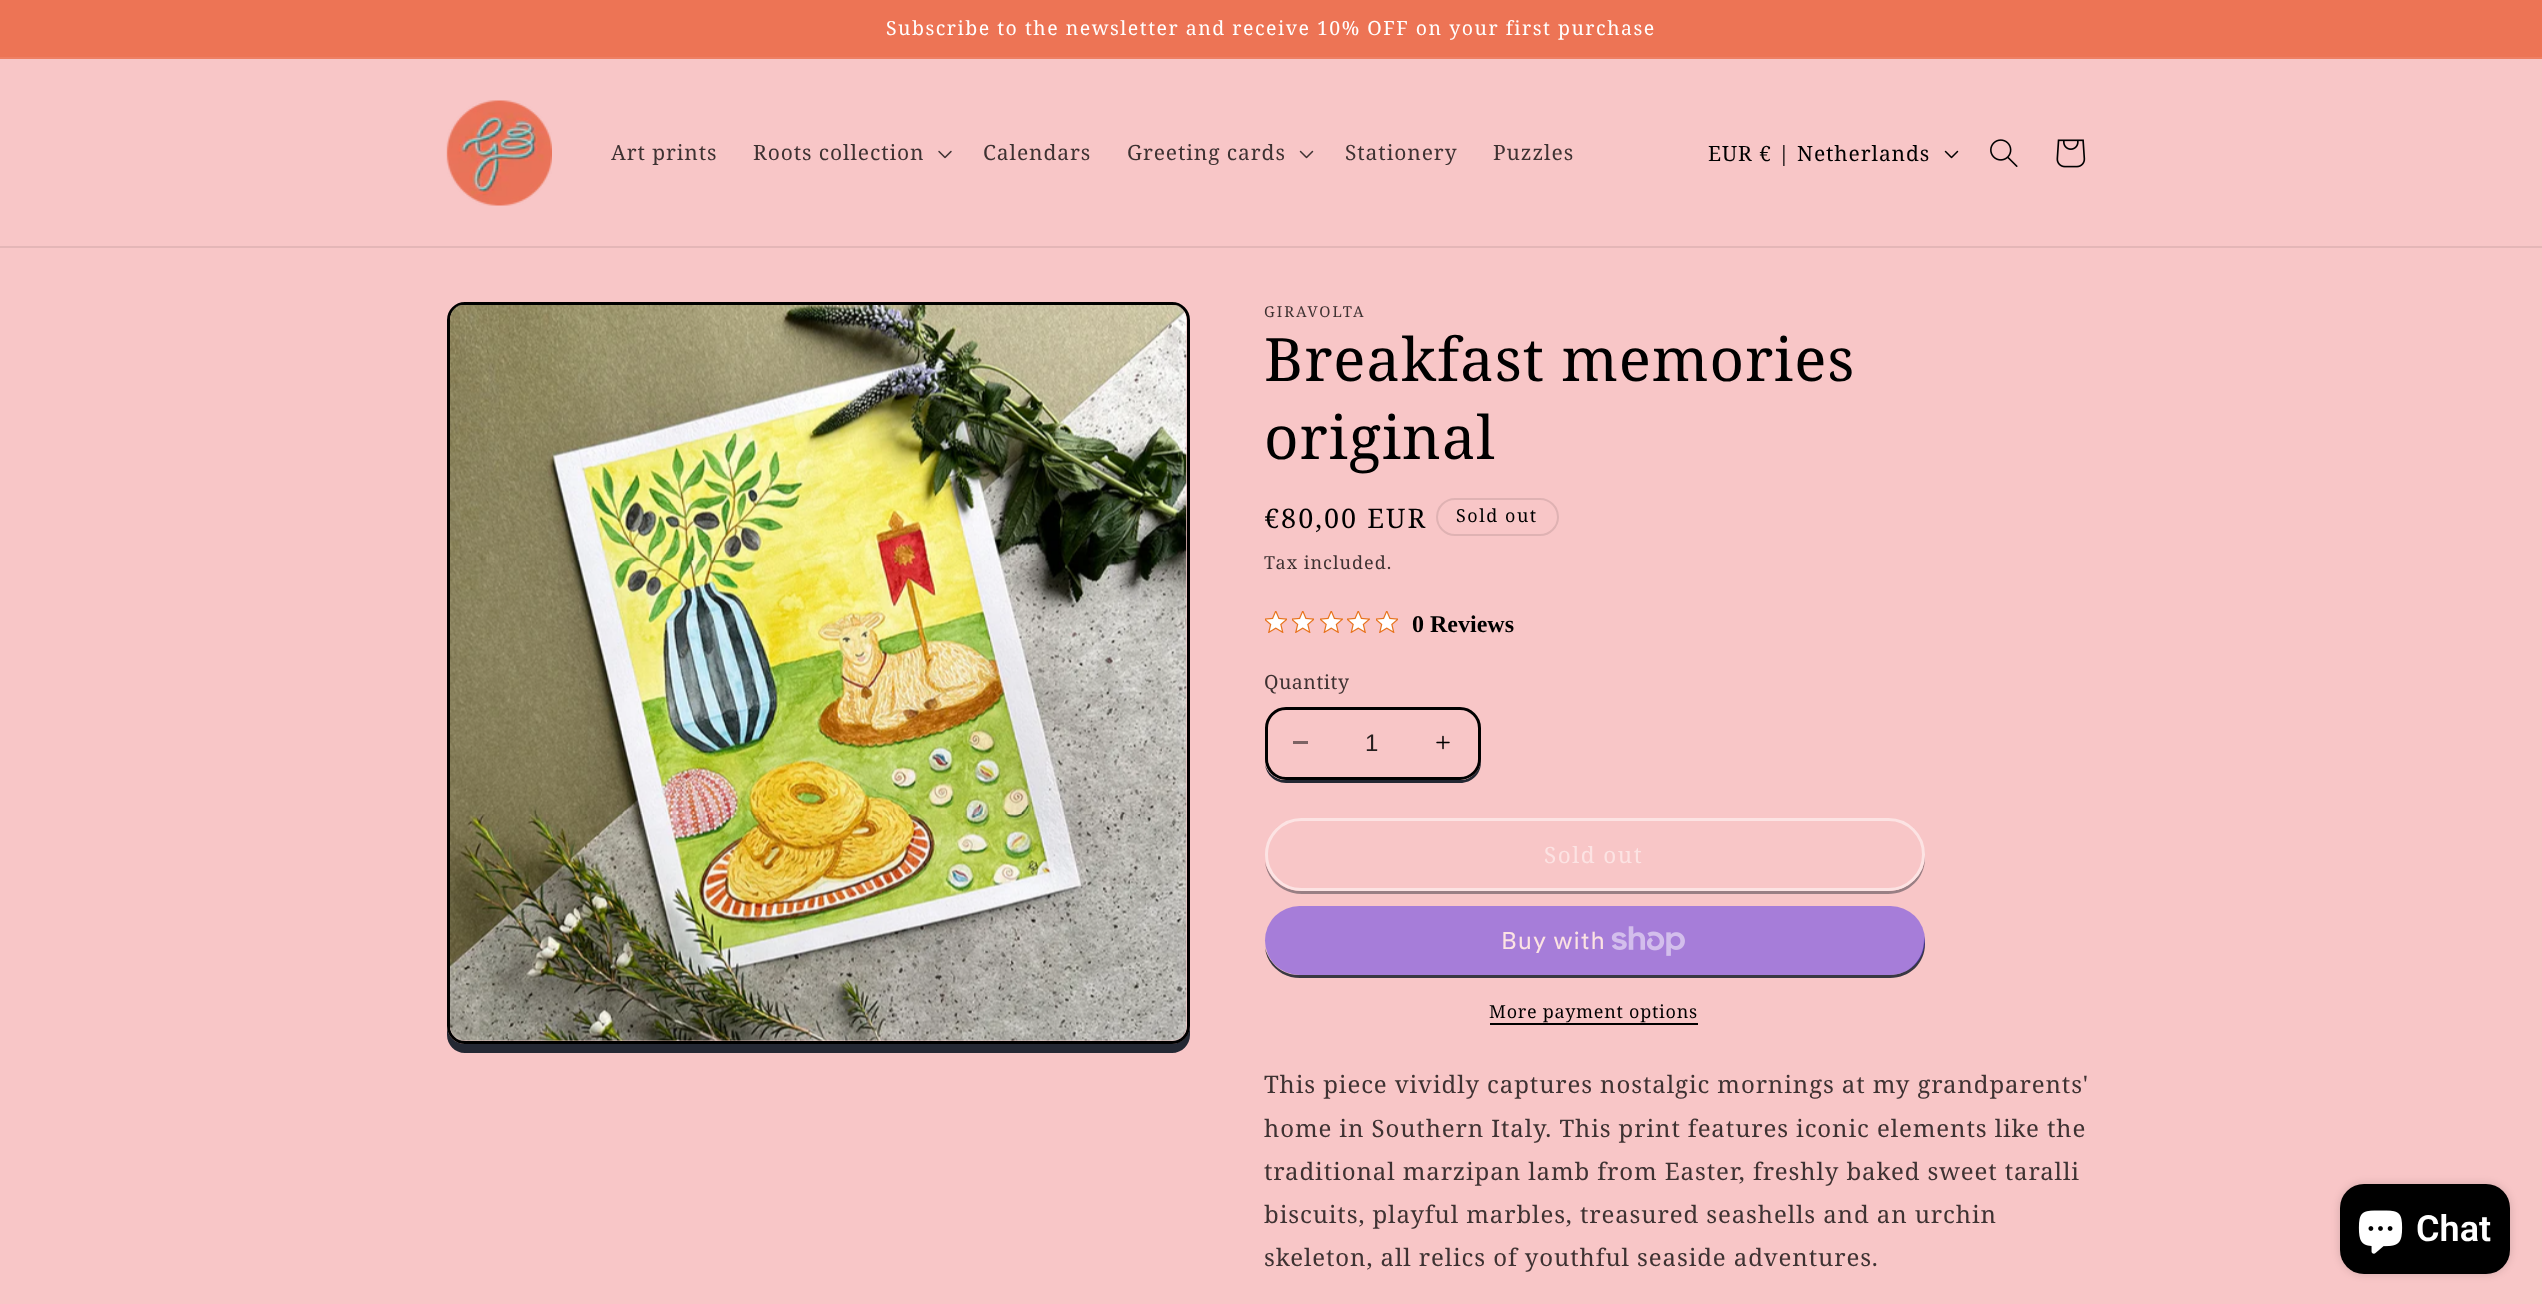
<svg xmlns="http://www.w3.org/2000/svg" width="2542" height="1304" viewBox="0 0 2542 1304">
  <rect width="100%" height="100%" fill="#f8c6c7"/>
  <path d="M0 0h2542v57H0z" fill="#ed7455"/>
  <path d="M0 57h2542v2H0z" fill="#ee7f63"/>
  <path d="M0 246h2542v2H0z" fill="#e4b6b7"/>
  <image x="446" y="100" width="106" height="106" href="img/1.png"/>
  <image x="938" y="150" width="14" height="9" href="img/2.png"/>
  <image x="1299" y="150" width="15" height="9" href="img/3.png"/>
  <image x="1944" y="150" width="15" height="9" href="img/4.png"/>
  <image x="1990" y="139" width="28" height="28" href="img/5.png"/>
  <image x="2056" y="139" width="30" height="29" href="img/6.png"/>
  <path d="M447 1026V1035C447 1045 455 1053 465 1053H1172C1182 1053 1190 1045 1190 1035V329V325V1026C1190 1036 1181 1044 1172 1044H465C455 1044 447 1036 447 1026Z" fill="#242833"/>
  <rect x="448.5" y="303.5" width="740" height="739" rx="16.5" fill="#f8c6c7" stroke="#000" stroke-width="3"/>
  <image x="450" y="305" width="737" height="736" href="img/7.png"/>
  <rect x="1437" y="499" width="121" height="36" rx="18" fill="none" stroke="#dfb2b3" stroke-width="2"/>
  <image x="1265" y="611" width="22" height="22" href="img/8.png"/>
  <image x="1292" y="611" width="22" height="22" href="img/8.png"/>
  <image x="1320" y="611" width="23" height="22" href="img/9.png"/>
  <image x="1347" y="611" width="23" height="22" href="img/9.png"/>
  <image x="1376" y="611" width="22" height="22" href="img/8.png"/>
  <path d="M1265 764C1266 775 1275 783 1286 783H1460C1472 783 1481 774 1481 762V731L1480 726V759C1480 771 1471 780 1460 780H1286C1276 780 1267 773 1265 764Z" fill="#242833"/>
  <rect x="1265" y="707" width="216" height="73" rx="21" fill="#f8c6c7"/>
  <path d="M1293 741h15v3H1293z" fill="#7c6364"/>
  <image x="1436" y="735" width="14" height="15" href="img/10.png"/>
  <rect x="1266.5" y="708.5" width="213" height="70" rx="19.5" fill="none" stroke="#000" stroke-width="3"/>
  <path d="M1265 862C1267 880 1283 894 1302 894H1888C1909 894 1925 878 1925 858L1924 850V854C1924 875 1908 891 1888 891H1301C1283 891 1269 878 1265 862Z" fill="#997f84"/>
  <rect x="1266.5" y="819.5" width="657" height="70" rx="35" fill="none" stroke="#f8c6c7" stroke-width="3"/>
  <rect x="1266.5" y="819.5" width="657" height="70" rx="35" fill="none" stroke="#fce3e3" stroke-width="3"/>
  <path d="M1265 948C1267 965 1282 978 1300 978H1890C1910 978 1925 963 1925 944L1924 936V940C1924 960 1909 975 1890 975H1299C1282 975 1269 963 1265 948Z" fill="#393842"/>
  <rect x="1265" y="906" width="660" height="69" rx="34.5" fill="#5433eb80"/>
  <image x="1611" y="926" width="74" height="30" href="img/11.png"/>
  <path d="M1490 1023h208v2H1490z" fill="#000"/>
  <rect x="2340" y="1184" width="170" height="90" rx="24" fill="#00000026" filter="blur(4px)"/>
  <rect x="2340" y="1184" width="170" height="90" rx="24" fill="#000"/>
  <image x="2358" y="1210" width="45" height="44" href="img/12.png"/>
  <text x="886" y="35" font-family="Noto Serif" font-size="19.5" letter-spacing="1.5" fill="#fff">Subscribe to the newsletter and receive 10% OFF on your first purchase</text>
  <g font-family="Noto Serif" font-size="21" letter-spacing="0.9" fill="#3e3232">
    <text x="611" y="160">Art prints</text>
    <text x="753" y="160">Roots collection</text>
    <text x="983" y="160">Calendars</text>
    <text x="1127" y="160">Greeting cards</text>
    <text x="1345" y="160">Stationery</text>
    <text x="1493" y="160">Puzzles</text>
  </g>
  <text x="1708" y="161" font-family="Noto Serif" font-size="21" letter-spacing="0.9" fill="#000">EUR € | Netherlands</text>
  <text x="1264" y="317" font-family="Noto Serif" font-size="15" letter-spacing="2" fill="#3e3232">GIRAVOLTA</text>
  <g font-family="Noto Serif" font-size="60" letter-spacing="0.9" fill="#000">
    <text x="1264" y="381">Breakfast memories</text>
    <text x="1264" y="459">original</text>
  </g>
  <text x="1264" y="528" font-family="Noto Serif" font-size="27" letter-spacing="2" fill="#000">€80,00 EUR</text>
  <text x="1456" y="522" font-family="Noto Serif" font-size="18" letter-spacing="1.5" fill="#000">Sold out</text>
  <text x="1264" y="569" font-family="Noto Serif" font-size="18" letter-spacing="1" fill="#3e3232">Tax included.</text>
  <text x="1412" y="632" font-family="Liberation Serif" font-size="24" font-weight="bold" fill="#000">0 Reviews</text>
  <text x="1264" y="689" font-family="Noto Serif" font-size="19.5" letter-spacing="0.5" fill="#3e3232">Quantity</text>
  <text x="1365" y="751" font-family="Liberation Sans" font-size="24" fill="#251e1e">1</text>
  <text x="1544" y="863" font-family="Noto Serif" font-size="22.5" letter-spacing="1.5" fill="#fce3e3">Sold out</text>
  <text x="1501" y="949" font-family="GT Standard" font-size="24" letter-spacing="0.9" fill="#fce3e3">Buy with</text>
  <text x="1489" y="1018" font-family="Noto Serif" font-size="18" letter-spacing="0.75" fill="#000">More payment options</text>
  <g font-family="Noto Serif" font-size="24" letter-spacing="0.9" fill="#3e3232">
    <text x="1264" y="1093">This piece vividly captures nostalgic mornings at my grandparents'</text>
    <text x="1264" y="1137">home in Southern Italy. This print features iconic elements like the</text>
    <text x="1264" y="1180">traditional marzipan lamb from Easter, freshly baked sweet taralli</text>
    <text x="1264" y="1223">biscuits, playful marbles, treasured seashells and an urchin</text>
    <text x="1264" y="1266">skeleton, all relics of youthful seaside adventures.</text>
  </g>
  <text x="2416" y="1241" font-family="Roboto" font-size="36" font-weight="600" fill="#fff">Chat</text>
</svg>
